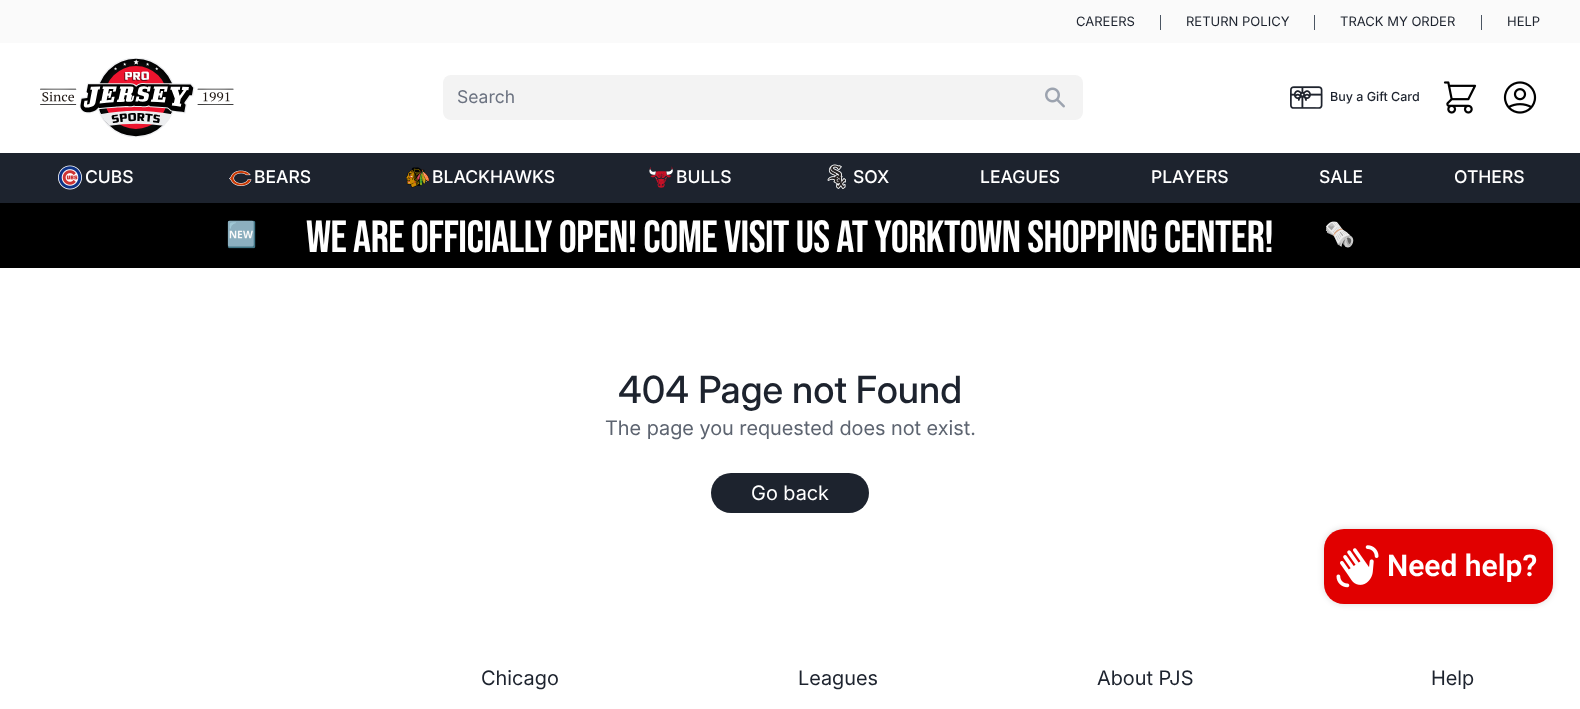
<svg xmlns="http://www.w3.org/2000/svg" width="1580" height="709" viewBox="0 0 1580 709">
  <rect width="100%" height="100%" fill="#fff"/>
  <path d="M0 0h1580v43H0z" fill="#fafafa"/>
  <path d="M1160 15h1v15H1160z" fill="#4b5563"/>
  <path d="M1314 15h1v15H1314z" fill="#4b5563"/>
  <path d="M1481 15h1v15H1481z" fill="#4b5563"/>
  <image x="40" y="58" width="194" height="80" href="img/1.png"/>
  <rect x="443" y="75" width="640" height="45" rx="8" fill="#f3f3f3"/>
  <image x="1045" y="87" width="20" height="21" href="img/2.png"/>
  <image x="1290" y="86" width="33" height="23" href="img/3.png"/>
  <image x="1443" y="81" width="34" height="33" href="img/4.png"/>
  <image x="1503" y="81" width="34" height="33" href="img/5.png"/>
  <path d="M0 153h1580v50H0z" fill="#1d232e"/>
  <image x="58" y="165" width="24" height="25" href="img/6.png"/>
  <image x="228" y="170" width="24" height="16" href="img/7.png"/>
  <image x="406" y="167" width="23" height="21" href="img/8.png"/>
  <image x="649" y="166" width="24" height="22" href="img/9.png"/>
  <image x="827" y="164" width="19" height="25" href="img/10.png"/>
  <path d="M0 203h1580v65H0z" fill="#000"/>
  <rect x="711" y="473" width="158" height="40" rx="20" fill="#1d232e"/>
  <rect x="1324" y="529" width="229" height="75" rx="20" fill="#00000026" filter="blur(3px)"/>
  <rect x="1324" y="529" width="229" height="75" rx="20" fill="#e10000"/>
  <image x="1336" y="545" width="43" height="43" href="img/11.png"/>
  <g font-family="Inter" font-size="13" fill="#1d232e">
    <text x="1076" y="26">CAREERS</text>
    <text x="1186" y="26">RETURN POLICY</text>
    <text x="1340" y="26">TRACK MY ORDER</text>
    <text x="1507" y="26">HELP</text>
  </g>
  <text x="457" y="103" font-family="Inter" font-size="17.5" fill="#6b7280">Search</text>
  <text x="1330" y="101" font-family="Inter" font-size="12.5" font-weight="500" fill="#1d232e">Buy a Gift Card</text>
  <g font-family="Inter" font-size="17.5" font-weight="500" fill="#fff">
    <text x="85" y="183">CUBS</text>
    <text x="254" y="183">BEARS</text>
    <text x="432" y="183">BLACKHAWKS</text>
    <text x="676" y="183">BULLS</text>
    <text x="853" y="183">SOX</text>
    <text x="980" y="183">LEAGUES</text>
    <text x="1151" y="183">PLAYERS</text>
    <text x="1319" y="183">SALE</text>
    <text x="1454" y="183">OTHERS</text>
  </g>
  <text x="226" y="243" font-family="Noto Color Emoji" font-size="25" letter-spacing="-0.5" fill="#fff">🆕</text>
  <text x="306" y="252" font-family="Bebas Neue" font-size="45" letter-spacing="-0.5" fill="#fff">We are officially open! Come visit us at Yorktown Shopping Center!</text>
  <text x="1324" y="243" font-family="Noto Color Emoji" font-size="25" letter-spacing="-0.5" fill="#fff">🗞️</text>
  <text x="618" y="403" font-family="'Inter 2'" font-size="37.5" font-weight="500" fill="#1d232e">404 Page not Found</text>
  <text x="605" y="435" font-family="'Inter 2'" font-size="20" fill="#5d6470">The page you requested does not exist.</text>
  <text x="751" y="500" font-family="'Inter 2'" font-size="20" fill="#fff">Go back</text>
  <text x="1387" y="576" font-family="Roboto" font-size="30" font-weight="600" fill="#fff">Need help?</text>
  <g font-family="'Inter 2'" font-size="20" fill="#1d232e">
    <text x="481" y="685">Chicago</text>
    <text x="798" y="685">Leagues</text>
    <text x="1097" y="685">About PJS</text>
    <text x="1431" y="685">Help</text>
  </g>
</svg>
